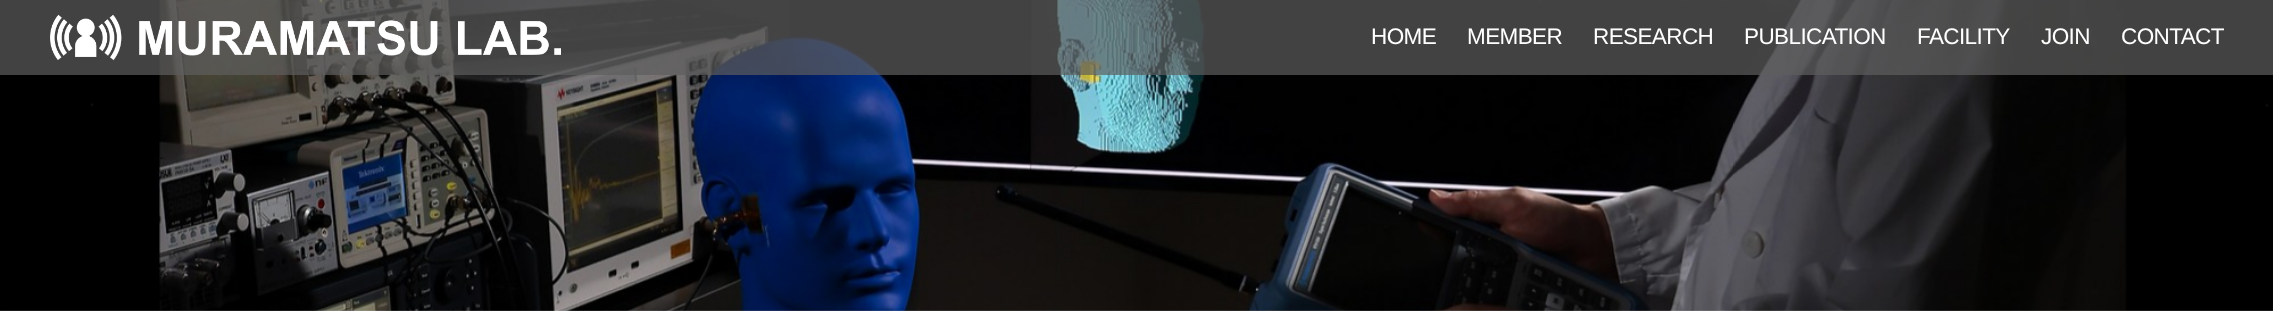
<svg xmlns="http://www.w3.org/2000/svg" width="2273" height="311" viewBox="0 0 2273 311">
  <rect width="100%" height="100%" fill="#fff"/>
  <image x="0" y="310" width="1" height="1" href="img/2.png"/>
  <image x="0" y="0" width="2273" height="311" href="img/1.png"/>
  <path d="M0 0h2273v75H0z" fill="#5e5e5eb3"/>
  <image x="50" y="14" width="511" height="47" href="img/3.png"/>
  <g font-family="Liberation Sans" font-size="22.5" letter-spacing="-0.6" fill="#fff">
    <text x="1371" y="44">HOME</text>
    <text x="1467" y="44">MEMBER</text>
    <text x="1593" y="44">RESEARCH</text>
    <text x="1744" y="44">PUBLICATION</text>
    <text x="1917" y="44">FACILITY</text>
    <text x="2041" y="44">JOIN</text>
    <text x="2121" y="44">CONTACT</text>
  </g>
</svg>
